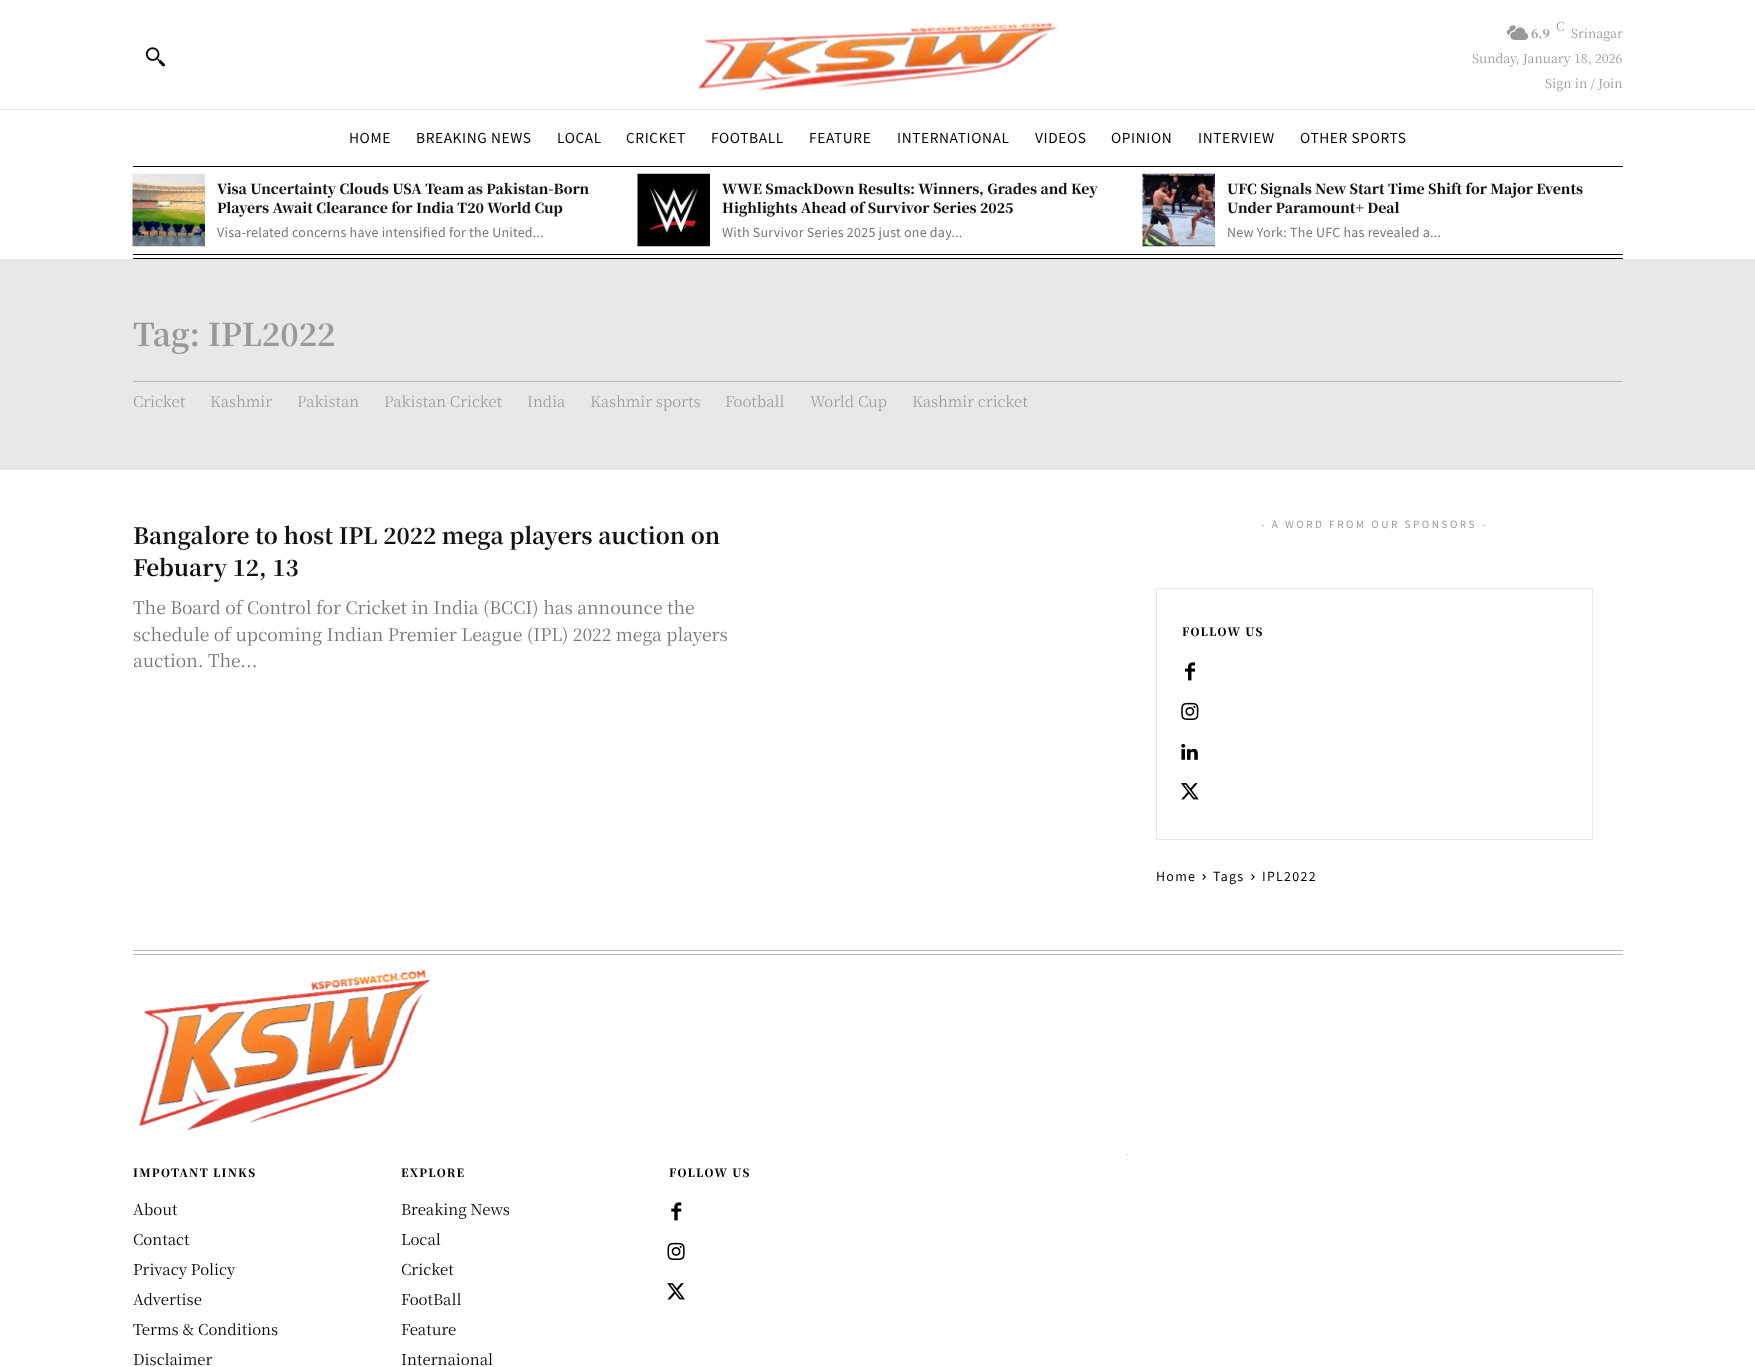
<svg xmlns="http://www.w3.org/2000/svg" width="1755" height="1367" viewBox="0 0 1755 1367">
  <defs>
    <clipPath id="clip1"><path d="M133 1194h208v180H133z"/></clipPath>
  </defs>
  <rect width="100%" height="100%" fill="#fff"/>
  <image x="145" y="47" width="20" height="20" href="img/1.png"/>
  <image x="698" y="23" width="359" height="68" href="img/2.png"/>
  <image x="1506" y="25" width="23" height="15" href="img/3.png"/>
  <path d="M0 109h1755v1H0z" fill="#e8e8e8"/>
  <path d="M133 166h1490v1H133z" fill="#000"/>
  <path d="M133 258h1490v1H133z" fill="#000"/>
  <image x="132" y="173" width="73" height="74" href="img/4.png"/>
  <image x="637" y="173" width="73" height="74" href="img/5.png"/>
  <image x="1142" y="173" width="73" height="74" href="img/6.png"/>
  <path d="M133 254h1490v1H133z" fill="#000"/>
  <path d="M0 259h1755v211H0z" fill="#e8e8e8"/>
  <path d="M133 381h1490v1H133z" fill="#b7b7b7"/>
  <path d="M1156.5 588.5h436v251H1156.5z" fill="none" stroke="#e8e8e8"/>
  <image x="1185" y="662" width="10" height="19" href="img/7.png"/>
  <image x="1181" y="702" width="18" height="18" href="img/8.png"/>
  <image x="1181" y="744" width="17" height="16" href="img/9.png"/>
  <image x="1181" y="783" width="18" height="17" href="img/10.png"/>
  <image x="1202" y="874" width="4" height="6" href="img/11.png"/>
  <image x="1251" y="874" width="4" height="6" href="img/12.png"/>
  <path d="M133 950h1490v1H133z" fill="#b7b7b7"/>
  <path d="M133 954h1490v1H133z" fill="#b7b7b7"/>
  <image x="139" y="970" width="291" height="161" href="img/13.png"/>
  <path d="M1126 1154h1v1H1126z" fill="#b7b7b7"/>
  <image x="671" y="1202" width="11" height="19" href="img/14.png"/>
  <image x="667" y="1242" width="18" height="18" href="img/15.png"/>
  <image x="667" y="1283" width="18" height="17" href="img/16.png"/>
  <text x="1556" y="31" font-family="Noto Serif JP" font-size="12.5" font-weight="300" fill="#999">C</text>
  <text x="1531" y="38" font-family="Noto Serif JP" font-size="12.5" font-weight="bold" fill="#999">6.9</text>
  <g font-family="Noto Serif JP" font-size="12.5" fill="#999">
    <text x="1571" y="38">Srinagar</text>
    <text x="1472" y="63">Sunday, January 18, 2026</text>
    <text x="1545" y="88">Sign in / Join</text>
  </g>
  <g font-family="Noto Sans JP" font-size="13.75" font-weight="100" letter-spacing="0.6" fill="#000">
    <text x="349" y="143">HOME</text>
    <text x="416" y="143">BREAKING NEWS</text>
    <text x="557" y="143">LOCAL</text>
    <text x="626" y="143">CRICKET</text>
    <text x="711" y="143">FOOTBALL</text>
    <text x="809" y="143">FEATURE</text>
    <text x="897" y="143">INTERNATIONAL</text>
    <text x="1035" y="143">VIDEOS</text>
    <text x="1111" y="143">OPINION</text>
    <text x="1198" y="143">INTERVIEW</text>
    <text x="1300" y="143">OTHER SPORTS</text>
  </g>
  <g font-family="Noto Serif JP" font-size="13.75" font-weight="900" fill="#111">
    <text x="217" y="194">Visa Uncertainty Clouds USA Team as Pakistan-Born</text>
    <text x="217" y="213">Players Await Clearance for India T20 World Cup</text>
  </g>
  <text x="217" y="237" font-family="Noto Sans JP" font-size="12.5" font-weight="100" letter-spacing="0.25" fill="#767676">Visa-related concerns have intensified for the United...</text>
  <g font-family="Noto Serif JP" font-size="13.75" font-weight="900" fill="#111">
    <text x="722" y="194">WWE SmackDown Results: Winners, Grades and Key</text>
    <text x="722" y="213">Highlights Ahead of Survivor Series 2025</text>
  </g>
  <text x="722" y="237" font-family="Noto Sans JP" font-size="12.5" font-weight="100" letter-spacing="0.25" fill="#767676">With Survivor Series 2025 just one day...</text>
  <g font-family="Noto Serif JP" font-size="13.75" font-weight="900" fill="#111">
    <text x="1227" y="194">UFC Signals New Start Time Shift for Major Events</text>
    <text x="1227" y="213">Under Paramount+ Deal</text>
  </g>
  <text x="1227" y="237" font-family="Noto Sans JP" font-size="12.5" font-weight="100" letter-spacing="0.25" fill="#767676">New York: The UFC has revealed a...</text>
  <text x="133" y="346" font-family="Noto Serif JP" font-size="31.25" font-weight="bold" fill="#999">Tag: IPL2022</text>
  <g font-family="Noto Serif JP" font-size="15" font-weight="300" fill="#999">
    <text x="133" y="407">Cricket</text>
    <text x="210" y="407">Kashmir</text>
    <text x="297" y="407">Pakistan</text>
    <text x="384" y="407">Pakistan Cricket</text>
    <text x="527" y="407">India</text>
    <text x="590" y="407">Kashmir sports</text>
    <text x="725" y="407">Football</text>
    <text x="810" y="407">World Cup</text>
    <text x="912" y="407">Kashmir cricket</text>
  </g>
  <g font-family="Noto Serif JP" font-size="22.5" font-weight="bold" fill="#111">
    <text x="133" y="544">Bangalore to host IPL 2022 mega players auction on</text>
    <text x="133" y="576">Febuary 12, 13</text>
  </g>
  <g font-family="Noto Serif JP" font-size="17.5" fill="#767676">
    <text x="133" y="614">The Board of Control for Cricket in India (BCCI) has announce the</text>
    <text x="133" y="641">schedule of upcoming Indian Premier League (IPL) 2022 mega players</text>
    <text x="133" y="667">auction. The...</text>
  </g>
  <text x="1261" y="528" font-family="Noto Sans JP" font-size="10" font-weight="100" letter-spacing="2.5" fill="#999">- A WORD FROM OUR SPONSORS -</text>
  <text x="1182" y="636" font-family="Noto Serif JP" font-size="11.25" font-weight="900" letter-spacing="1.25" fill="#000">FOLLOW US</text>
  <g font-family="Noto Sans JP" font-size="12.5" font-weight="100" letter-spacing="1.25" fill="#000">
    <text x="1156" y="881">Home</text>
    <text x="1213" y="881">Tags</text>
    <text x="1262" y="881">IPL2022</text>
  </g>
  <text x="133" y="1177" font-family="Noto Serif JP" font-size="11.25" font-weight="900" letter-spacing="1.25" fill="#000">IMPOTANT LINKS</text>
  <g font-family="Noto Serif JP" font-size="15" fill="#000">
    <text x="133" y="1215">About</text>
    <text x="133" y="1245">Contact</text>
    <text x="133" y="1275">Privacy Policy</text>
    <text x="133" y="1305">Advertise</text>
  </g>
  <g clip-path="url(#clip1)">
    <text x="133" y="1335" font-family="Noto Serif JP" font-size="15" fill="#000">Terms &amp; Conditions</text>
  </g>
  <text x="133" y="1365" font-family="Noto Serif JP" font-size="15" fill="#000">Disclaimer</text>
  <text x="401" y="1177" font-family="Noto Serif JP" font-size="11.25" font-weight="900" letter-spacing="1.25" fill="#000">EXPLORE</text>
  <g font-family="Noto Serif JP" font-size="15" fill="#000">
    <text x="401" y="1215">Breaking News</text>
    <text x="401" y="1245">Local</text>
    <text x="401" y="1275">Cricket</text>
    <text x="401" y="1305">FootBall</text>
    <text x="401" y="1335">Feature</text>
    <text x="401" y="1365">Internaional</text>
  </g>
  <text x="669" y="1177" font-family="Noto Serif JP" font-size="11.25" font-weight="900" letter-spacing="1.25" fill="#000">FOLLOW US</text>
</svg>
